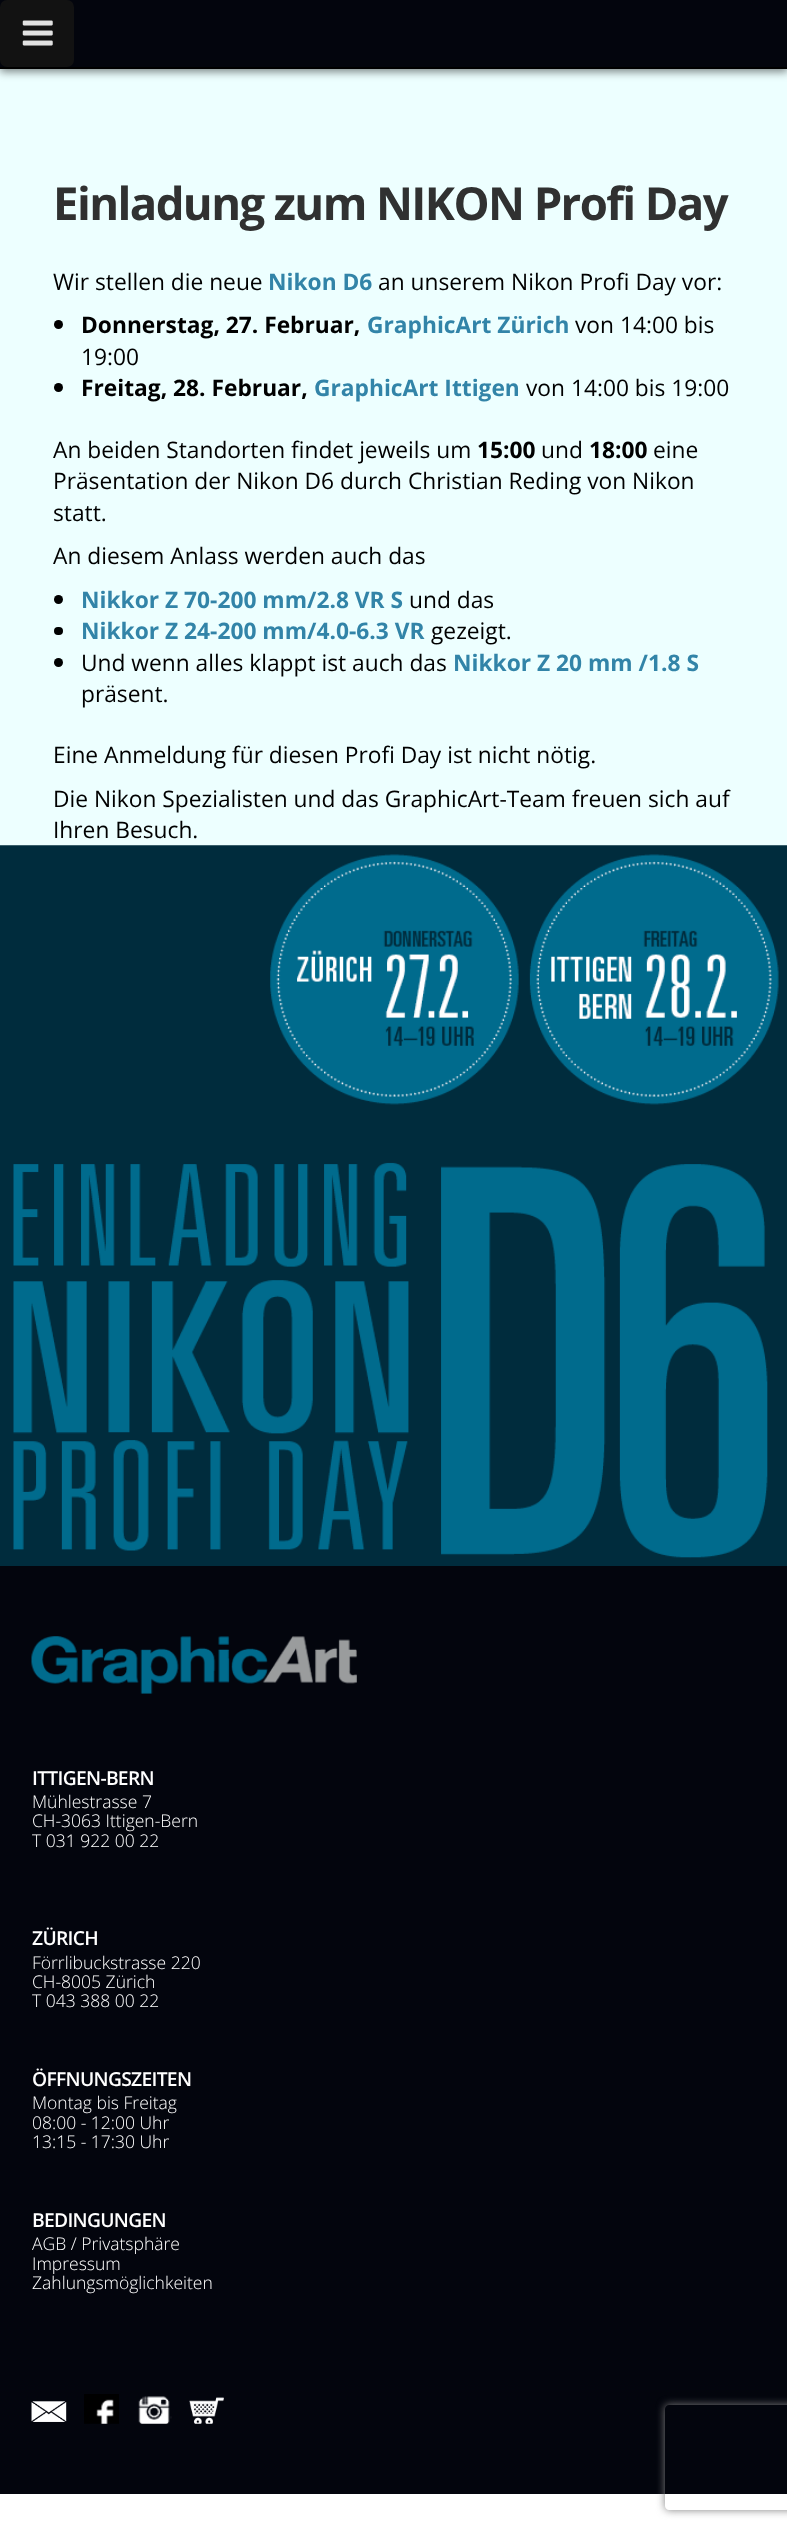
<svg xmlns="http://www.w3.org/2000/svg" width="787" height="2533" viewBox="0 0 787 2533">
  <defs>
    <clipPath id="clip1"><path d="M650 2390H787V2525H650ZM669 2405H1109C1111 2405 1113 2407 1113 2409V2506C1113 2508 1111 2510 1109 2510H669C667 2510 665 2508 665 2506V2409C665 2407 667 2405 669 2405Z" clip-rule="evenodd"/></clipPath>
  </defs>
  <rect width="100%" height="100%" fill="#fff"/>
  <path d="M0 69h787v777H0z" fill="#edffff"/>
  <path d="M0 4h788v68H0z" fill="#00000078" filter="blur(4px)"/>
  <path d="M0 0h787v67H0z" fill="#03050d"/>
  <path d="M0 67h787v2H0z" fill="#000"/>
  <rect width="74" height="67" rx="7" fill="#121212"/>
  <image x="22" y="20" width="31" height="26" href="img/1.png"/>
  <circle cx="58.5" cy="324.5" r="4.5" fill="#000"/>
  <circle cx="58.5" cy="387.5" r="4.5" fill="#000"/>
  <circle cx="58.5" cy="599.5" r="4.5" fill="#000"/>
  <rect x="54" y="627" width="9" height="8" rx="4" fill="#000"/>
  <circle cx="58.5" cy="662.5" r="4.5" fill="#000"/>
  <image x="0" y="845" width="787" height="721" href="img/2.png"/>
  <path d="M0 1566h787v928H0z" fill="#03050d"/>
  <image x="31" y="1636" width="326" height="58" href="img/3.png"/>
  <image x="31" y="2401" width="36" height="21" href="img/4.png"/>
  <image x="84" y="2394" width="35" height="30" href="img/5.png"/>
  <image x="138" y="2396" width="34" height="28" href="img/6.png"/>
  <image x="189" y="2397" width="35" height="27" href="img/7.png"/>
  <g clip-path="url(#clip1)">
    <rect x="665" y="2405" width="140" height="105" rx="4" fill="#808080" filter="blur(4.5px)"/>
  </g>
  <text x="53" y="220" font-family="Open Sans" font-size="45.5" font-weight="bold" letter-spacing="-1.6" fill="#303131">Einladung zum NIKON Profi Day</text>
  <text x="53" y="290" font-family="Open Sans" font-size="22.75" fill="#000">Wir stellen die neue</text>
  <text x="268" y="290" font-family="Open Sans" font-size="22.75" font-weight="bold" fill="#3284a8">Nikon D6</text>
  <text x="378" y="290" font-family="Open Sans" font-size="22.75" fill="#000">an unserem Nikon Profi Day vor:</text>
  <text x="81" y="333" font-family="Open Sans" font-size="22.75" font-weight="bold" fill="#000">Donnerstag, 27. Februar,</text>
  <text x="367" y="333" font-family="Open Sans" font-size="22.75" font-weight="bold" fill="#3284a8">GraphicArt Zürich</text>
  <g font-family="Open Sans" font-size="22.75" fill="#000">
    <text x="575" y="333">von 14:00 bis</text>
    <text x="81" y="365">19:00</text>
  </g>
  <text x="81" y="396" font-family="Open Sans" font-size="22.75" font-weight="bold" fill="#000">Freitag, 28. Februar,</text>
  <text x="314" y="396" font-family="Open Sans" font-size="22.75" font-weight="bold" fill="#3284a8">GraphicArt Ittigen</text>
  <g font-family="Open Sans" font-size="22.75" fill="#000">
    <text x="526" y="396">von 14:00 bis 19:00</text>
    <text x="53" y="458">An beiden Standorten findet jeweils um</text>
  </g>
  <text x="477" y="458" font-family="Open Sans" font-size="22.75" font-weight="bold" fill="#000">15:00</text>
  <text x="541" y="458" font-family="Open Sans" font-size="22.75" fill="#000">und</text>
  <text x="589" y="458" font-family="Open Sans" font-size="22.75" font-weight="bold" fill="#000">18:00</text>
  <g font-family="Open Sans" font-size="22.75" fill="#000">
    <text x="653" y="458">eine</text>
    <text x="53" y="489">Präsentation der Nikon D6 durch Christian Reding von Nikon</text>
    <text x="53" y="521">statt.</text>
    <text x="53" y="564">An diesem Anlass werden auch das</text>
  </g>
  <text x="81" y="608" font-family="Open Sans" font-size="22.75" font-weight="bold" fill="#3284a8">Nikkor Z 70-200 mm/2.8 VR S</text>
  <text x="409" y="608" font-family="Open Sans" font-size="22.75" fill="#000">und das</text>
  <text x="81" y="639" font-family="Open Sans" font-size="22.75" font-weight="bold" fill="#3284a8">Nikkor Z 24-200 mm/4.0-6.3 VR</text>
  <g font-family="Open Sans" font-size="22.75" fill="#000">
    <text x="431" y="639">gezeigt.</text>
    <text x="81" y="671">Und wenn alles klappt ist auch das</text>
  </g>
  <text x="453" y="671" font-family="Open Sans" font-size="22.75" font-weight="bold" fill="#3284a8">Nikkor Z 20 mm /1.8 S</text>
  <g font-family="Open Sans" font-size="22.75" fill="#000">
    <text x="81" y="702">präsent.</text>
    <text x="53" y="763">Eine Anmeldung für diesen Profi Day ist nicht nötig.</text>
    <text x="53" y="807">Die Nikon Spezialisten und das GraphicArt-Team freuen sich auf</text>
    <text x="53" y="838">Ihren Besuch.</text>
  </g>
  <text x="32" y="1785" font-family="Open Sans" font-size="19.25" font-weight="600" letter-spacing="-0.7" fill="#fff">ITTIGEN-BERN</text>
  <g font-family="Open Sans" font-size="17.5" font-weight="300" fill="#fff">
    <text x="32" y="1808">Mühlestrasse 7</text>
    <text x="32" y="1827">CH-3063 Ittigen-Bern</text>
    <text x="32" y="1847">T 031 922 00 22</text>
  </g>
  <text x="32" y="1945" font-family="Open Sans" font-size="19.25" font-weight="600" letter-spacing="-0.7" fill="#fff">ZÜRICH</text>
  <g font-family="Open Sans" font-size="17.5" font-weight="300" fill="#fff">
    <text x="32" y="1969">Förrlibuckstrasse 220</text>
    <text x="32" y="1988">CH-8005 Zürich</text>
    <text x="32" y="2007">T 043 388 00 22</text>
  </g>
  <text x="32" y="2086" font-family="Open Sans" font-size="19.25" font-weight="600" letter-spacing="-0.7" fill="#fff">ÖFFNUNGSZEITEN</text>
  <g font-family="Open Sans" font-size="17.5" font-weight="300" fill="#fff">
    <text x="32" y="2109">Montag bis Freitag</text>
    <text x="32" y="2129">08:00 - 12:00 Uhr</text>
    <text x="32" y="2148">13:15 - 17:30 Uhr</text>
  </g>
  <text x="32" y="2227" font-family="Open Sans" font-size="19.25" font-weight="600" letter-spacing="-0.7" fill="#fff">BEDINGUNGEN</text>
  <g font-family="Open Sans" font-size="17.5" font-weight="300" fill="#fff">
    <text x="32" y="2250">AGB / Privatsphäre</text>
    <text x="32" y="2270">Impressum</text>
    <text x="32" y="2289">Zahlungsmöglichkeiten</text>
  </g>
</svg>
